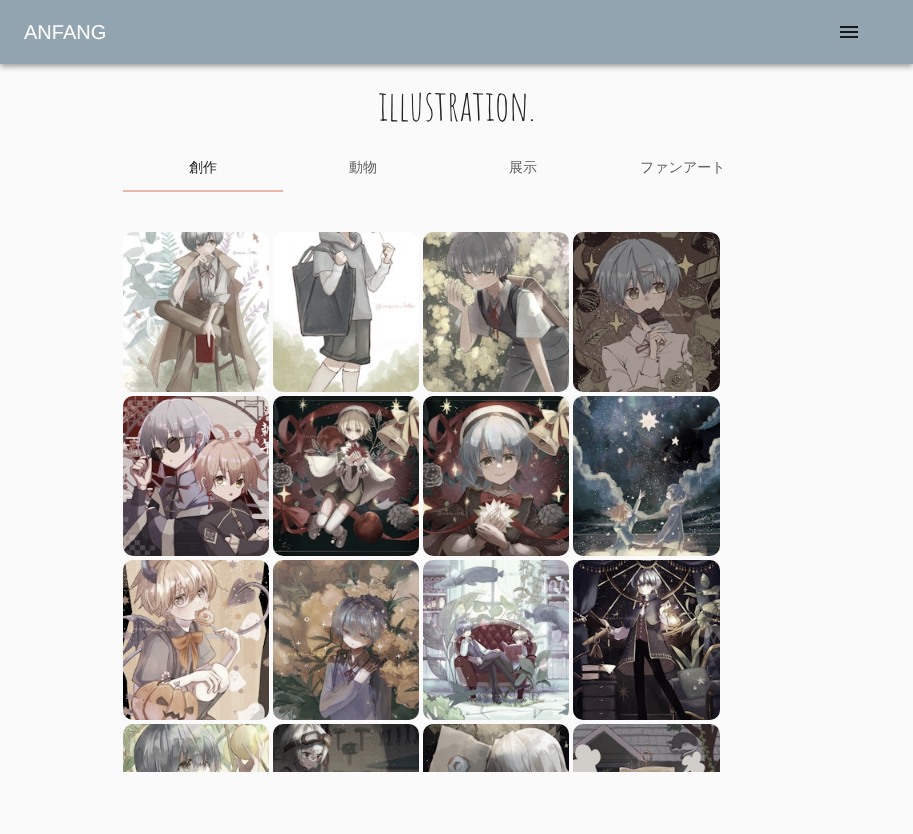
<svg xmlns="http://www.w3.org/2000/svg" width="913" height="834" viewBox="0 0 913 834">
  <rect width="100%" height="100%" fill="#fafafa"/>
  <path d="M0 1h913v64H0z" fill="#0000001f" filter="blur(5px)"/>
  <path d="M0 4h913v64H0z" fill="#00000024" filter="blur(2.5px)"/>
  <path d="M1 3h911v62H1z" fill="#00000033" filter="blur(2px)"/>
  <path d="M0 0h913v64H0z" fill="#92a4b0"/>
  <image x="840" y="26" width="18" height="12" href="img/1.png"/>
  <path d="M123 190h160v2H123z" fill="#e9b6a9"/>
  <image x="123" y="232" width="146" height="160" href="img/2.png"/>
  <image x="273" y="232" width="146" height="160" href="img/3.png"/>
  <image x="423" y="232" width="146" height="160" href="img/4.png"/>
  <image x="573" y="232" width="147" height="160" href="img/5.png"/>
  <image x="123" y="396" width="146" height="160" href="img/6.png"/>
  <image x="273" y="396" width="146" height="160" href="img/7.png"/>
  <image x="423" y="396" width="146" height="160" href="img/8.png"/>
  <image x="573" y="396" width="147" height="160" href="img/9.png"/>
  <image x="123" y="560" width="146" height="160" href="img/10.png"/>
  <image x="273" y="560" width="146" height="160" href="img/11.png"/>
  <image x="423" y="560" width="146" height="160" href="img/12.png"/>
  <image x="573" y="560" width="147" height="160" href="img/13.png"/>
  <image x="123" y="724" width="146" height="48" href="img/14.png"/>
  <image x="273" y="724" width="146" height="48" href="img/15.png"/>
  <image x="423" y="724" width="146" height="48" href="img/16.png"/>
  <image x="573" y="724" width="147" height="48" href="img/17.png"/>
  <text x="24" y="39" font-family="Liberation Sans" font-size="20" fill="#fff">ANFANG</text>
  <text x="378" y="121" font-family="Amatic SC" font-size="42" fill="#212121">illustration.</text>
  <text x="189" y="172" font-family="WenQuanYi Zen Hei" font-size="14" font-weight="500" fill="#212121">創作</text>
  <g font-family="WenQuanYi Zen Hei" font-size="14" font-weight="500" fill="#626262">
    <text x="349" y="172">動物</text>
    <text x="509" y="172">展示</text>
    <text x="640" y="172">ファンアート</text>
  </g>
</svg>
